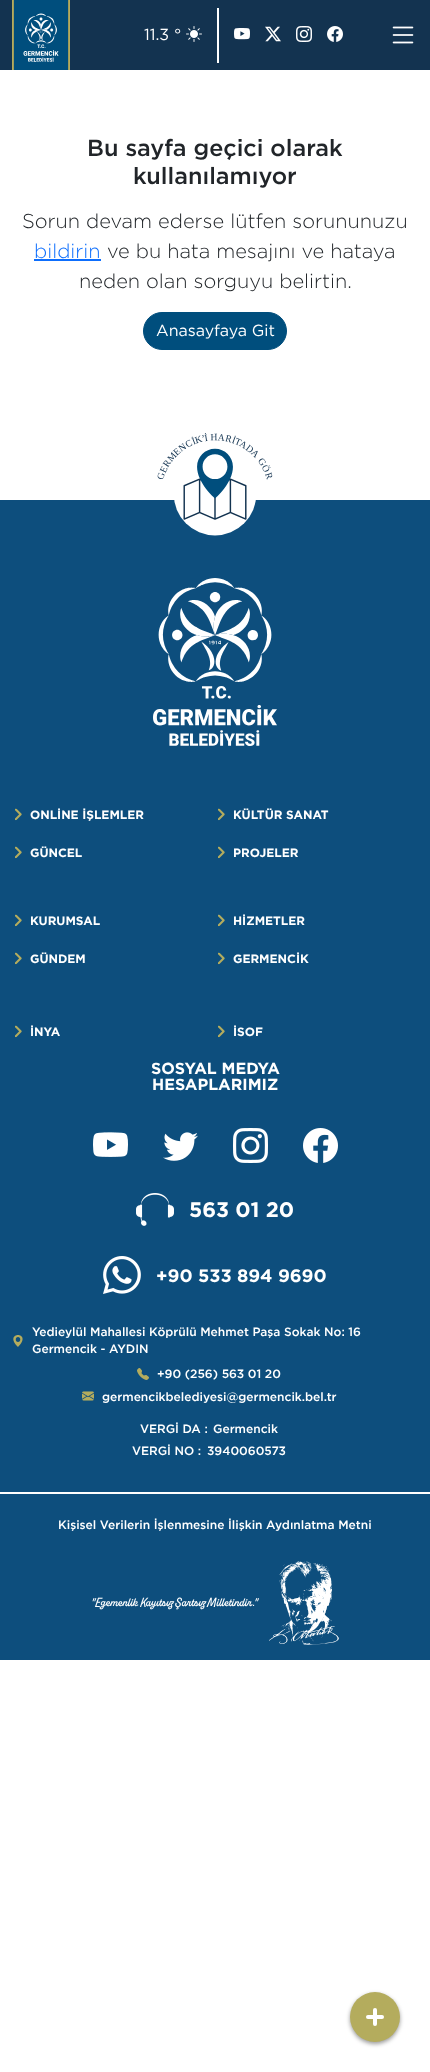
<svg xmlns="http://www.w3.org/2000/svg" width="430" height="2072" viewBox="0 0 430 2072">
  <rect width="100%" height="100%" fill="#fff"/>
  <path d="M0 0h430v70H0z" fill="#133350"/>
  <image x="12" y="0" width="58" height="70" href="img/1.png"/>
  <image x="186" y="26" width="16" height="16" href="img/2.png"/>
  <path d="M217 8h2v55H217z" fill="#fff"/>
  <image x="234" y="28" width="16" height="12" href="img/3.png"/>
  <image x="265" y="26" width="16" height="16" href="img/4.png"/>
  <image x="296" y="26" width="16" height="16" href="img/5.png"/>
  <image x="327" y="26" width="16" height="16" href="img/6.png"/>
  <image x="392" y="26" width="22" height="18" href="img/7.png"/>
  <path d="M34 259h67v2H34z" fill="#0d6efd"/>
  <rect x="143.5" y="312.5" width="143" height="37" rx="18.5" fill="#004e7d" stroke="#004e7d"/>
  <path d="M0 500h430v1160H0z" fill="#0d4e7d"/>
  <image x="157" y="433" width="116" height="103" href="img/8.png"/>
  <image x="153" y="578" width="124" height="168" href="img/9.png"/>
  <image x="15" y="808" width="7" height="13" href="img/10.png"/>
  <image x="218" y="808" width="7" height="13" href="img/10.png"/>
  <image x="15" y="846" width="7" height="13" href="img/10.png"/>
  <image x="218" y="846" width="7" height="13" href="img/10.png"/>
  <image x="15" y="914" width="7" height="13" href="img/10.png"/>
  <image x="218" y="914" width="7" height="13" href="img/10.png"/>
  <image x="15" y="952" width="7" height="13" href="img/10.png"/>
  <image x="218" y="952" width="7" height="13" href="img/10.png"/>
  <image x="15" y="1025" width="7" height="13" href="img/10.png"/>
  <image x="218" y="1025" width="7" height="13" href="img/10.png"/>
  <image x="93" y="1132" width="35" height="25" href="img/11.png"/>
  <image x="163" y="1132" width="35" height="29" href="img/12.png"/>
  <image x="233" y="1128" width="35" height="35" href="img/13.png"/>
  <image x="303" y="1128" width="35" height="35" href="img/14.png"/>
  <image x="136" y="1193" width="38" height="33" href="img/15.png"/>
  <image x="103" y="1256" width="38" height="38" href="img/16.png"/>
  <path d="M18 1347C34 1331 2 1331 18 1347ZM18 1342C15 1342 15 1337 18 1337C21 1337 21 1342 18 1342Z" fill="#b4ac5d"/>
  <image x="137" y="1368" width="12" height="12" href="img/17.png"/>
  <image x="82" y="1391" width="12" height="10" href="img/18.png"/>
  <path d="M0 1492h430v2H0z" fill="#fff"/>
  <image x="269" y="1561" width="70" height="84" href="img/19.png"/>
  <rect x="350" y="1994" width="50" height="50" rx="25" fill="#00000066" filter="blur(2px)"/>
  <circle cx="375" cy="2017" r="25" fill="#b4ac5d"/>
  <rect x="373" y="2008" width="4" height="18" rx="2" fill="#fff"/>
  <rect x="366" y="2015" width="18" height="4" rx="2" fill="#fff"/>
  <text x="144" y="40" font-family="Gotham" font-size="16" fill="#fff">11.3 °</text>
  <g font-family="Gotham" font-size="23.4" font-weight="500" fill="#212529">
    <text x="87" y="156">Bu sayfa geçici olarak</text>
    <text x="133" y="184">kullanılamıyor</text>
  </g>
  <text x="22" y="228" font-family="Gotham" font-size="20" font-weight="300" fill="#212529">Sorun devam ederse lütfen sorununuzu</text>
  <text x="34" y="258" font-family="Gotham" font-size="20" font-weight="300" fill="#0d6efd">bildirin</text>
  <g font-family="Gotham" font-size="20" font-weight="300" fill="#212529">
    <text x="107" y="258">ve bu hata mesajını ve hataya</text>
    <text x="79" y="288">neden olan sorguyu belirtin.</text>
  </g>
  <text x="156" y="336" font-family="Gotham" font-size="16" fill="#fff">Anasayfaya Git</text>
  <g font-family="Gotham" font-size="12" font-weight="bold" fill="#fff">
    <text x="30" y="819">ONLİNE İŞLEMLER</text>
    <text x="233" y="819">KÜLTÜR SANAT</text>
    <text x="30" y="857">GÜNCEL</text>
    <text x="233" y="857">PROJELER</text>
    <text x="30" y="925">KURUMSAL</text>
    <text x="233" y="925">HİZMETLER</text>
    <text x="30" y="963">GÜNDEM</text>
    <text x="233" y="963">GERMENCİK</text>
    <text x="30" y="1036">İNYA</text>
    <text x="233" y="1036">İSOF</text>
  </g>
  <g font-family="Gotham" font-size="16" font-weight="bold" fill="#fff">
    <text x="151" y="1074">SOSYAL MEDYA</text>
    <text x="152" y="1090">HESAPLARIMIZ</text>
  </g>
  <text x="189" y="1217" font-family="Gotham" font-size="21" font-weight="bold" fill="#fff">563 01 20</text>
  <text x="156" y="1282" font-family="Gotham" font-size="18" font-weight="bold" fill="#fff">+90 533 894 9690</text>
  <g font-family="Gotham" font-size="12" font-weight="500" fill="#fff">
    <text x="32" y="1336">Yedieylül Mahallesi Köprülü Mehmet Paşa Sokak No: 16</text>
    <text x="32" y="1353">Germencik - AYDIN</text>
    <text x="157" y="1378">+90 (256) 563 01 20</text>
    <text x="102" y="1401">germencikbelediyesi@germencik.bel.tr</text>
    <text x="140" y="1433">VERGİ DA :</text>
    <text x="213" y="1433">Germencik</text>
    <text x="132" y="1455">VERGİ NO :</text>
    <text x="207" y="1455">3940060573</text>
    <text x="58" y="1529">Kişisel Verilerin İşlenmesine İlişkin Aydınlatma Metni</text>
  </g>
  <text x="91" y="1606" font-family="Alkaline" font-size="12" font-weight="600" fill="#fff">"Egemenlik Kayıtsız Şartsız Milletindir."</text>
</svg>
